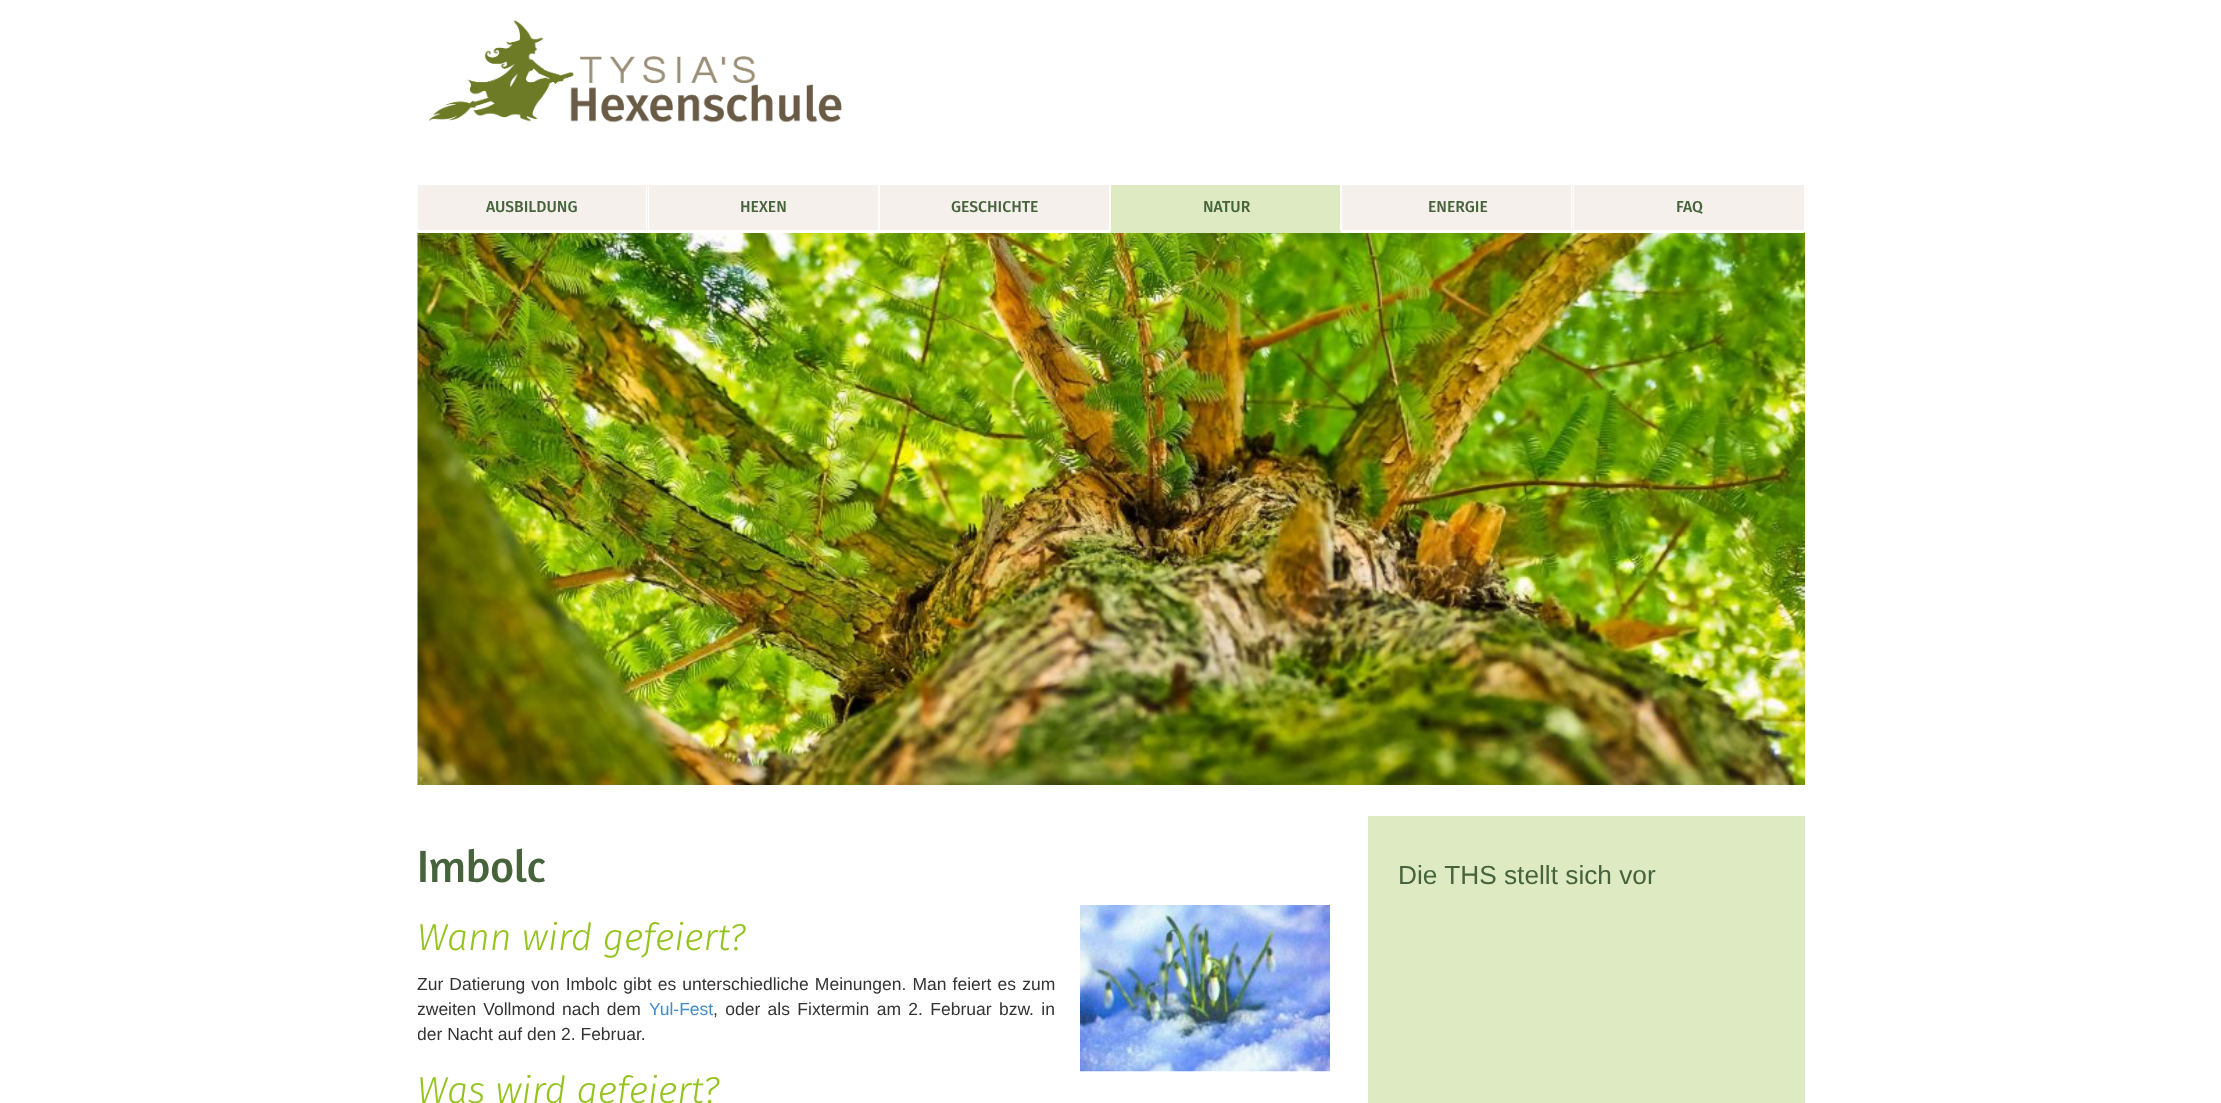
<svg xmlns="http://www.w3.org/2000/svg" width="2221" height="1103" viewBox="0 0 2221 1103">
  <defs>
    <clipPath id="clip1"><path d="M418 816h912v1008H418z"/></clipPath>
  </defs>
  <rect width="100%" height="100%" fill="#fff"/>
  <image x="428" y="20" width="414" height="103" href="img/1.png"/>
  <path d="M418 185h230v45H418z" fill="#f5f0eb"/>
  <image x="417" y="232" width="1388" height="553" href="img/2.png"/>
  <path d="M646 185h1v48H646z" fill="#fff"/>
  <path d="M418 232h230v1H418z" fill="#fff"/>
  <path d="M649 185h229v45H649z" fill="#f5f0eb"/>
  <path d="M648 232h231v1H648z" fill="#fff"/>
  <path d="M880 185h229v45H880z" fill="#f5f0eb"/>
  <path d="M879 232h231v1H879z" fill="#fff"/>
  <path d="M1110 185h231v48H1110z" fill="#deeac2"/>
  <path d="M1341 185V232L1340 230V185Z" fill="#fff"/>
  <path d="M1341 232H1110L1111 230H1340Z" fill="#deeac2"/>
  <path d="M1110 232V185H1111V230Z" fill="#fff"/>
  <path d="M1342 185h231v45H1342z" fill="#f5f0eb"/>
  <path d="M1571 185h1v48H1571z" fill="#fff"/>
  <path d="M1341 232h463v1H1341z" fill="#fff"/>
  <path d="M1574 185h230v45H1574z" fill="#f5f0eb"/>
  <image x="1080" y="905" width="250" height="167" href="img/3.png"/>
  <path d="M1368 816h437v287H1368z" fill="#ddeac2"/>
  <g font-family="Fira Sans" font-size="15.75" font-weight="500" fill="#46633c">
    <text x="486" y="212">AUSBILDUNG</text>
    <text x="740" y="212">HEXEN</text>
    <text x="951" y="212">GESCHICHTE</text>
    <text x="1203" y="212">NATUR</text>
    <text x="1428" y="212">ENERGIE</text>
    <text x="1676" y="212">FAQ</text>
  </g>
  <text x="417" y="882" font-family="Amaranth" font-size="46" fill="#46633c">Imbolc</text>
  <text x="417" y="950" font-family="Fira Sans" font-size="37.5" font-weight="300" font-style="italic" fill="#95c31e">Wann wird gefeiert?</text>
  <text x="417" y="990" word-spacing="1.25" font-family="Liberation Sans" font-size="17.5" fill="#333">Zur Datierung von Imbolc gibt es unterschiedliche Meinungen. Man feiert es zum</text>
  <g clip-path="url(#clip1)">
    <text x="417" y="1015" word-spacing="2" font-family="Liberation Sans" font-size="17.5" fill="#333">zweiten Vollmond nach dem</text>
  </g>
  <text x="649" y="1015" font-family="Liberation Sans" font-size="17.5" fill="#428bca">Yul-Fest</text>
  <text x="713" y="1015" word-spacing="2.5" font-family="Liberation Sans" font-size="17.5" fill="#333">, oder als Fixtermin am 2. Februar bzw. in</text>
  <g clip-path="url(#clip1)">
    <text x="417" y="1040" font-family="Liberation Sans" font-size="17.5" fill="#333">der Nacht auf den 2. Februar.</text>
  </g>
  <text x="417" y="1103" font-family="Fira Sans" font-size="37.5" font-weight="300" font-style="italic" fill="#95c31e">Was wird gefeiert?</text>
  <text x="1398" y="884" font-family="Liberation Sans" font-size="26.25" fill="#46633c">Die THS stellt sich vor</text>
</svg>
